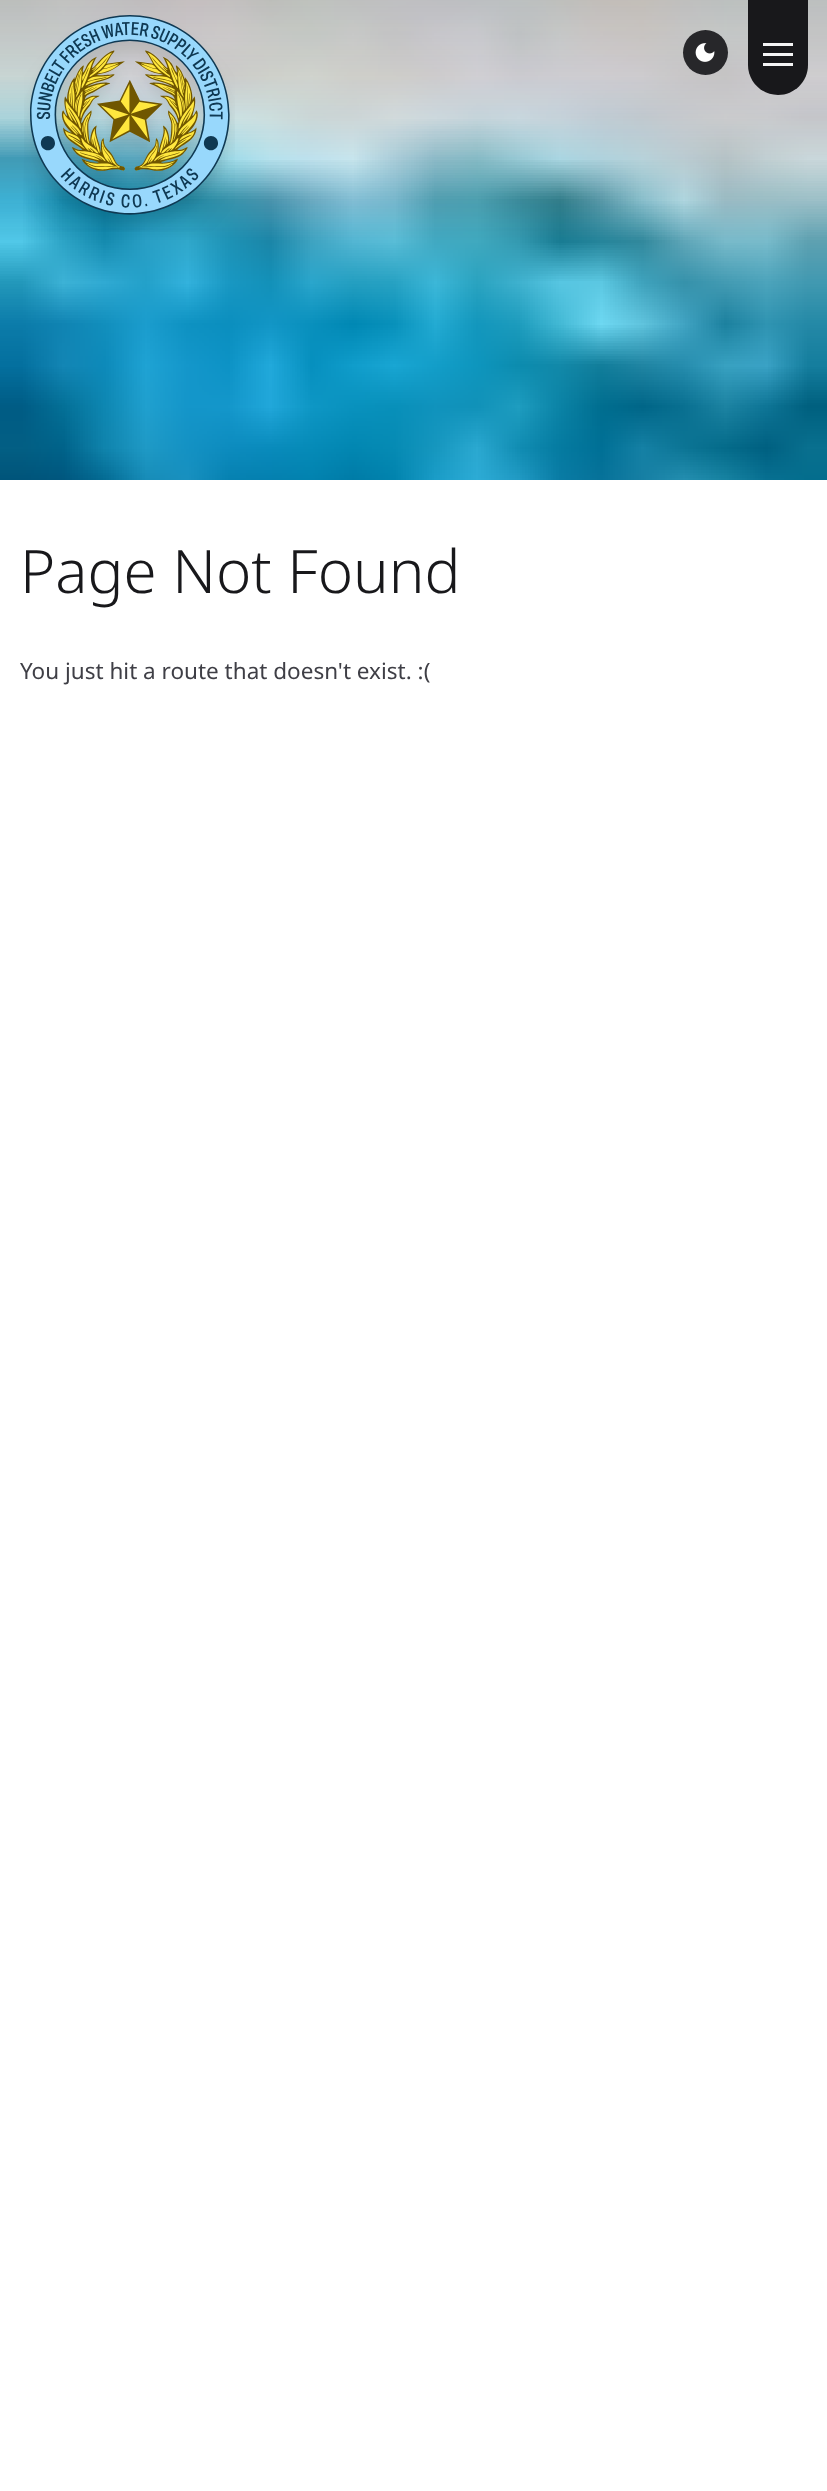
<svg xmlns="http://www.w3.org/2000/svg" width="827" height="2491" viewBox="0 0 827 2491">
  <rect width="100%" height="100%" fill="#fff"/>
  <image x="0" y="0" width="827" height="480" href="img/1.png"/>
  <image x="24" y="15" width="211" height="217" href="img/2.png"/>
  <circle cx="705.5" cy="52.5" r="22.5" fill="#27272a"/>
  <image x="695" y="43" width="20" height="19" href="img/3.png"/>
  <path d="M748 0H808V65C808 81.5 794.5 95 778 95C761.5 95 748 81.5 748 65Z" fill="#18181b"/>
  <path d="M763 43h30v3H763z" fill="#f4f4f5"/>
  <path d="M763 53h30v3H763z" fill="#f4f4f5"/>
  <path d="M763 63h30v3H763z" fill="#f4f4f5"/>
  <text x="20" y="593" font-family="Noto Sans" font-size="60" font-weight="300" fill="#18181b">Page Not Found</text>
  <text x="20" y="679" font-family="Noto Sans" font-size="22.5" fill="#3f3f46">You just hit a route that doesn't exist. :(</text>
</svg>
